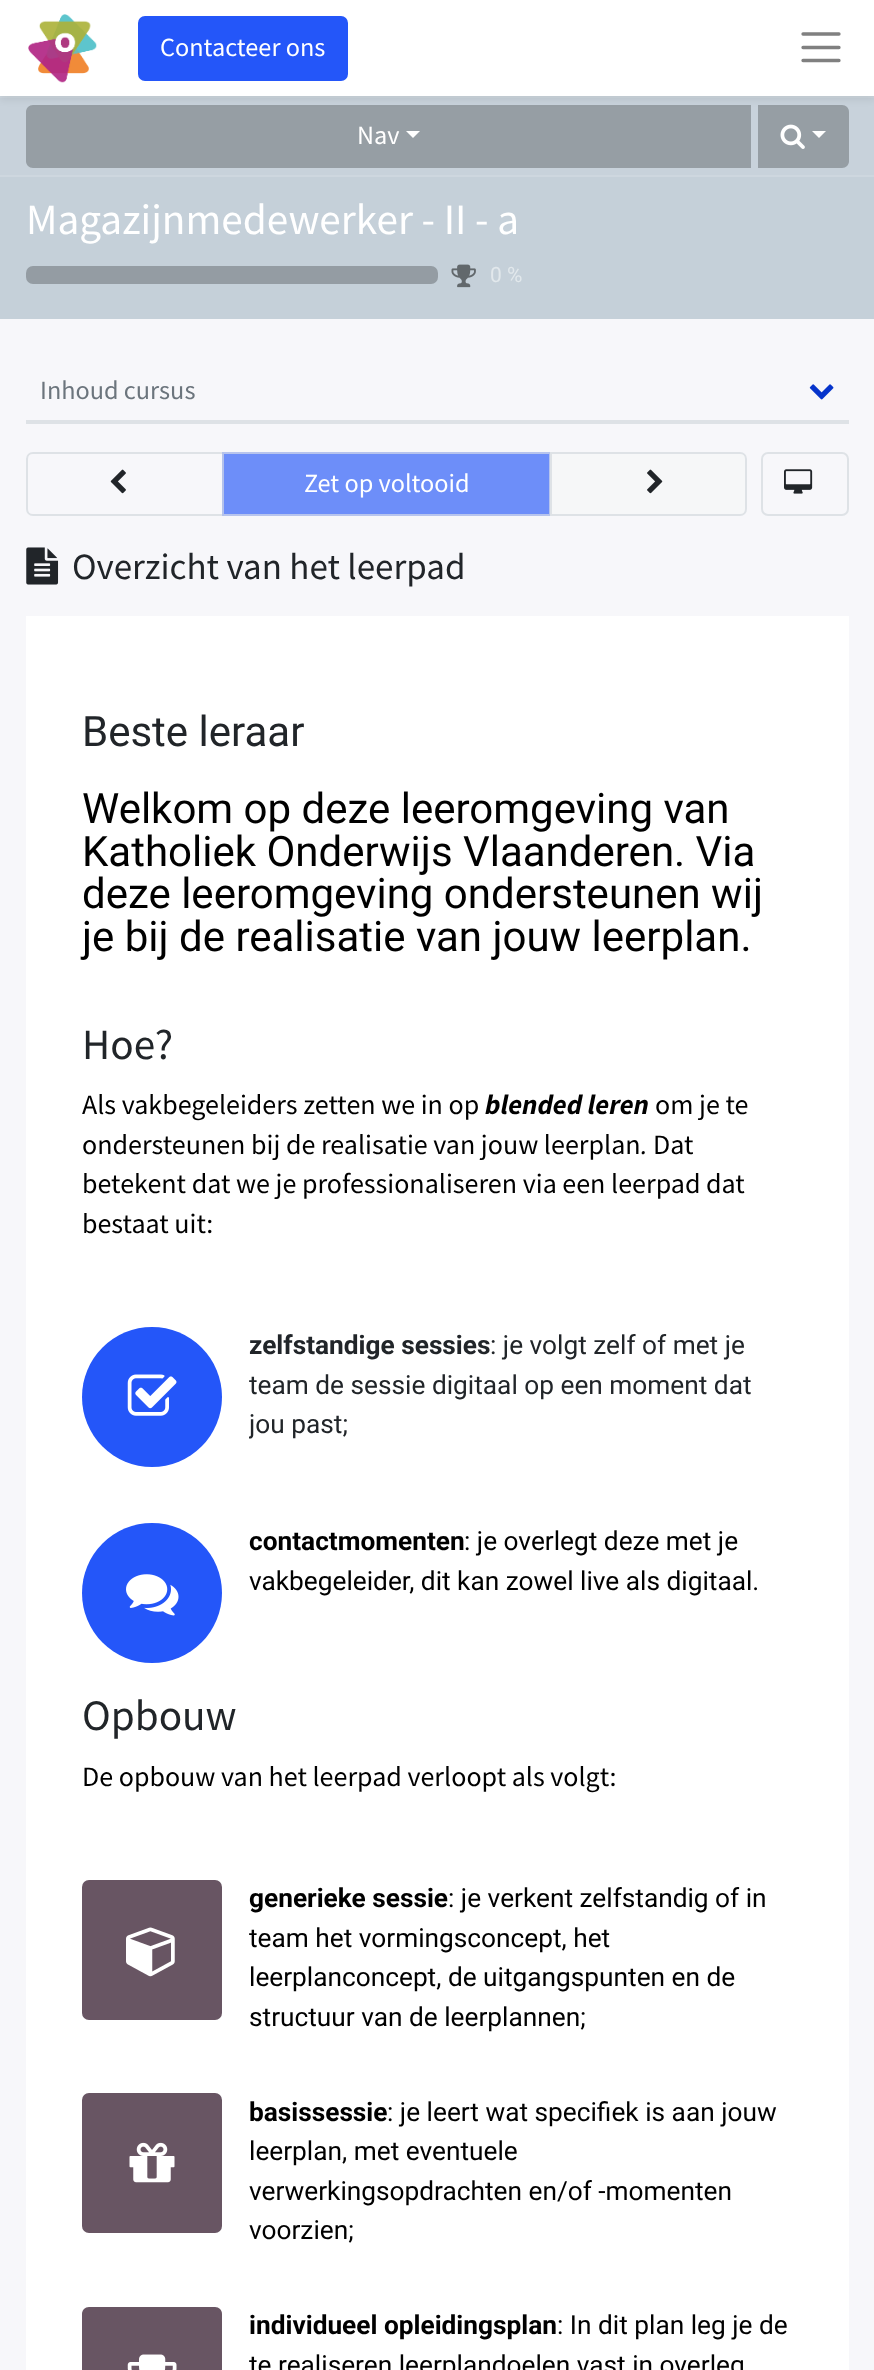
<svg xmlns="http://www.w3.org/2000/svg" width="874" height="2370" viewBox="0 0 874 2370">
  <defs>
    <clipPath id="clip1"><path d="M249 1327h544v117H249z"/></clipPath>
  </defs>
  <rect width="100%" height="100%" fill="#f7f7fa"/>
  <path d="M0 98h874v77H0z" fill="#c8d2db"/>
  <path d="M0 96h874v2H0z" fill="#ced7df"/>
  <path d="M33 105H751V168H33C29 168 26 165 26 161V112C26 108 29 105 33 105Z" fill="#969ea4"/>
  <path d="M758 105H842C846 105 849 108 849 112V161C849 165 846 168 842 168H758Z" fill="#969ea4"/>
  <path d="M0 4h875v96H0z" fill="#00000012" filter="blur(3.5px)"/>
  <path d="M0 0h874v96H0z" fill="#fff"/>
  <image x="28" y="14" width="69" height="69" href="img/1.png"/>
  <rect x="139" y="17" width="208" height="63" rx="6" fill="#2456f9" stroke="#2456f9" stroke-width="2"/>
  <path d="M803 34H839M803 47.5H839M803 60.5H839" fill="none" stroke="#808080" stroke-width="3.3" stroke-linecap="round"/>
  <path d="M0 177h874v142H0z" fill="#c5d0d9"/>
  <path d="M0 175h874v2H0z" fill="#ced7df"/>
  <path d="M406 131H420L413 138Z" fill="#fff"/>
  <image x="780" y="124" width="25" height="25" href="img/2.png"/>
  <path d="M812 131H826L819 138Z" fill="#fff"/>
  <rect x="26" y="266" width="412" height="18" rx="7" fill="#949ca3"/>
  <image x="451" y="264" width="25" height="24" href="img/3.png"/>
  <path d="M26 420h823v4H26z" fill="#dee2e6"/>
  <image x="809" y="384" width="25" height="16" href="img/4.png"/>
  <path d="M33 453H223V515H33C29.5 515 27 512.5 27 509V459C27 455.5 29.5 453 33 453Z" fill="none" stroke="#dee2e6" stroke-width="2"/>
  <image x="110" y="469" width="16" height="25" href="img/5.png"/>
  <path d="M222 452h328v64H222z" fill="#2456f9a6"/>
  <path d="M223 453h327v62H223z" fill="none" stroke="#dee2e6a6" stroke-width="2"/>
  <path d="M551 453H740C743.5 453 746 455.5 746 459V509C746 512.5 743.5 515 740 515H551Z" fill="#f6f7f8" stroke="#dee2e6" stroke-width="2"/>
  <image x="647" y="469" width="16" height="25" href="img/6.png"/>
  <rect x="762" y="453" width="86" height="62" rx="6" fill="none" stroke="#dee2e6" stroke-width="2"/>
  <image x="784" y="469" width="29" height="25" href="img/7.png"/>
  <image x="26" y="547" width="33" height="38" href="img/8.png"/>
  <path d="M26 616h823v1754H26z" fill="#fff"/>
  <circle cx="152" cy="1397" r="70" fill="#2456f9"/>
  <image x="127" y="1374" width="50" height="42" href="img/9.png"/>
  <circle cx="152" cy="1593" r="70" fill="#2456f9"/>
  <image x="126" y="1574" width="53" height="42" href="img/10.png"/>
  <rect x="82" y="1880" width="140" height="140" rx="7" fill="#685563"/>
  <image x="126" y="1927" width="49" height="50" href="img/11.png"/>
  <rect x="82" y="2093" width="140" height="140" rx="7" fill="#685563"/>
  <image x="129" y="2142" width="46" height="41" href="img/12.png"/>
  <path d="M89 2307H215C219 2307 222 2310 222 2314V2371H82V2314C82 2310 85 2307 89 2307Z" fill="#685563"/>
  <image x="127" y="2354" width="50" height="16" href="img/13.png"/>
  <g font-family="Source Sans Pro" font-size="26.25" fill="#fff">
    <text x="160" y="56">Contacteer ons</text>
    <text x="357" y="144">Nav</text>
  </g>
  <text x="26" y="234" font-family="Source Sans Pro" font-size="43.25" fill="#fff">Magazijnmedewerker - II - a</text>
  <text x="490" y="282" font-family="Roboto" font-size="21" fill="#e2e8ec">0 %</text>
  <text x="40" y="399" font-family="Source Sans Pro" font-size="26.25" fill="#6c757d">Inhoud cursus</text>
  <text x="304" y="492" font-family="Source Sans Pro" font-size="26.25" fill="#fff">Zet op voltooid</text>
  <text x="72" y="579" font-family="Source Sans Pro" font-size="37" fill="#212529">Overzicht van het leerpad</text>
  <text x="82" y="746" font-family="Roboto" font-size="42" fill="#212529">Beste leraar</text>
  <g font-family="Roboto" font-size="42" fill="#000">
    <text x="82" y="823">Welkom op deze leeromgeving van</text>
    <text x="82" y="866">Katholiek Onderwijs Vlaanderen. Via</text>
    <text x="82" y="908">deze leeromgeving ondersteunen wij</text>
    <text x="82" y="951">je bij de realisatie van jouw leerplan.</text>
  </g>
  <text x="82" y="1059" font-family="Source Sans Pro" font-size="43.25" fill="#212529">Hoe?</text>
  <text x="82" y="1114" font-family="Source Sans Pro" font-size="28" fill="#000">Als vakbegeleiders zetten we in op</text>
  <text x="485" y="1114" font-family="Source Sans Pro" font-size="28" font-weight="bold" font-style="italic" fill="#000">blended leren</text>
  <g font-family="Source Sans Pro" font-size="28" fill="#000">
    <text x="655" y="1114">om je te</text>
    <text x="82" y="1154">ondersteunen bij de realisatie van jouw leerplan</text>
  </g>
  <text x="641" y="1154" font-family="Source Sans Pro" font-size="28" font-style="italic" fill="#000">.</text>
  <g font-family="Source Sans Pro" font-size="28" fill="#000">
    <text x="653" y="1154">Dat</text>
    <text x="82" y="1193">betekent dat we je professionaliseren via een leerpad dat</text>
    <text x="82" y="1233">bestaat uit:</text>
  </g>
  <text x="249" y="1354" font-family="Roboto" font-size="26.25" font-weight="bold" fill="#212529">zelfstandige sessies</text>
  <g font-family="Roboto" font-size="26.25" fill="#212529">
    <text x="490" y="1354">: je volgt zelf of met je</text>
    <text x="249" y="1394">team de sessie digitaal op een moment dat</text>
  </g>
  <g clip-path="url(#clip1)">
    <text x="249" y="1433" font-family="Roboto" font-size="26.25" fill="#212529">jou past;</text>
  </g>
  <text x="249" y="1550" font-family="Roboto" font-size="26.25" font-weight="bold" fill="#000">contactmomenten</text>
  <g font-family="Roboto" font-size="26.25" fill="#000">
    <text x="464" y="1550">: je overlegt deze met je</text>
    <text x="249" y="1590">vakbegeleider, dit kan zowel live als digitaal.</text>
  </g>
  <text x="82" y="1730" font-family="Source Sans Pro" font-size="43.25" fill="#212529">Opbouw</text>
  <text x="82" y="1786" font-family="Source Sans Pro" font-size="28" fill="#000">De opbouw van het leerpad verloopt als volgt:</text>
  <text x="249" y="1907" font-family="Roboto" font-size="26.25" font-weight="bold" fill="#000">generieke sessie</text>
  <g font-family="Roboto" font-size="26.25" fill="#000">
    <text x="448" y="1907">: je verkent zelfstandig of in</text>
    <text x="249" y="1947">team het vormingsconcept, het</text>
    <text x="249" y="1986">leerplanconcept, de uitgangspunten en de</text>
    <text x="249" y="2026">structuur van de leerplannen;</text>
  </g>
  <text x="249" y="2121" font-family="Roboto" font-size="26.25" font-weight="bold" fill="#000">basissessie</text>
  <g font-family="Roboto" font-size="26.25" fill="#000">
    <text x="387" y="2121">: je leert wat specifiek is aan jouw</text>
    <text x="249" y="2160">leerplan, met eventuele</text>
    <text x="249" y="2200">verwerkingsopdrachten en/of -momenten</text>
    <text x="249" y="2239">voorzien;</text>
  </g>
  <text x="249" y="2334" font-family="Roboto" font-size="26.25" font-weight="bold" fill="#000">individueel opleidingsplan</text>
  <g font-family="Roboto" font-size="26.25" fill="#000">
    <text x="557" y="2334">: In dit plan leg je de</text>
    <text x="249" y="2374">te realiseren leerplandoelen vast in overleg</text>
  </g>
</svg>
